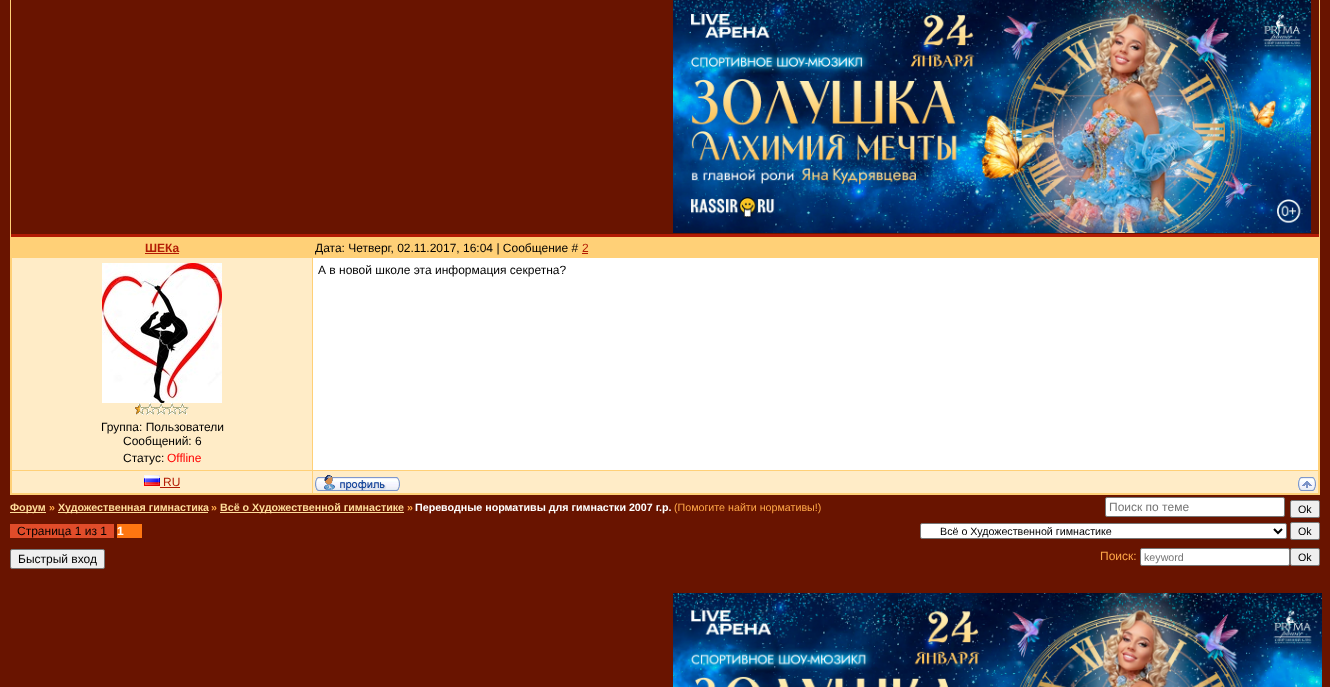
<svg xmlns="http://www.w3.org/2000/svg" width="1330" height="687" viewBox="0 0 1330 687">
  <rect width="100%" height="100%" fill="#691400"/>
  <path d="M10 0h1310v495H10z" fill="#ffd077"/>
  <path d="M11 234h1308v3H11z" fill="#b21b04"/>
  <path d="M11 0h1308v234H11z" fill="#691400"/>
  <image x="673" y="0" width="638" height="233" href="img/1.png"/>
  <path d="M145 253h34v1H145z" fill="#b21b04"/>
  <path d="M582 253h6v1H582z" fill="#b21b04"/>
  <path d="M313 258h1005v212H313z" fill="#fff"/>
  <path d="M12 258h300v212H12z" fill="#ffecc7"/>
  <image x="102" y="263" width="120" height="140" href="img/2.png"/>
  <image x="134" y="403" width="55" height="12" href="img/3.png"/>
  <path d="M12 471h300v22H12z" fill="#ffecc7"/>
  <image x="144" y="475" width="16" height="11" href="img/4.png"/>
  <path d="M160 487h20v1H160z" fill="#b21b04"/>
  <path d="M313 471h1005v22H313z" fill="#ffecc7"/>
  <image x="315" y="475" width="85" height="16" href="img/5.png"/>
  <image x="1298" y="477" width="18" height="14" href="img/6.png"/>
  <path d="M10 512h36v1H10z" fill="#ffdc99"/>
  <path d="M58 512h150v1H58z" fill="#ffdc99"/>
  <path d="M220 512h184v1H220z" fill="#ffdc99"/>
  <rect x="1105.5" y="497.5" width="179" height="19" rx="1.5" fill="#fff" stroke="#767676"/>
  <rect x="1290.5" y="500.5" width="29" height="17" rx="1.5" fill="#efefef" stroke="#767676"/>
  <path d="M10 524h104v14H10z" fill="#e14c2a"/>
  <path d="M117 524h25v14H117z" fill="#ff7611"/>
  <rect x="920.5" y="523.5" width="366" height="15" rx="1.5" fill="#fff" stroke="#767676"/>
  <path d="M1274 529L1278 533L1282 529" fill="none" stroke="#000" stroke-width="2"/>
  <rect x="1290.5" y="522.5" width="29" height="17" rx="1.5" fill="#efefef" stroke="#767676"/>
  <rect x="10.5" y="549.5" width="94" height="19" rx="1.5" fill="#efefef" stroke="#767676"/>
  <rect x="1140.5" y="548.5" width="149" height="17" rx="1.5" fill="#fff" stroke="#767676"/>
  <rect x="1290.5" y="548.5" width="29" height="17" rx="1.5" fill="#efefef" stroke="#767676"/>
  <image x="673" y="593" width="649" height="94" href="img/7.png"/>
  <text x="145" y="252" font-family="Liberation Sans" font-size="12" font-weight="bold" fill="#b21b04">ШЕКа</text>
  <text x="315" y="252" font-family="Liberation Sans" font-size="12" fill="#000">Дата: Четверг, 02.11.2017, 16:04 | Сообщение #</text>
  <text x="582" y="252" font-family="Liberation Sans" font-size="12" fill="#b21b04">2</text>
  <g font-family="Liberation Sans" font-size="12" fill="#000">
    <text x="318" y="274">А в новой школе эта информация секретна?</text>
    <text x="101" y="431">Группа: Пользователи</text>
    <text x="123" y="445">Сообщений: 6</text>
    <text x="123" y="462">Статус:</text>
  </g>
  <text x="167" y="462" font-family="Liberation Sans" font-size="12" fill="#f00">Offline</text>
  <text x="163" y="486" font-family="Liberation Sans" font-size="12" fill="#b21b04">RU</text>
  <text x="10" y="511" font-family="Liberation Sans" font-size="10.7" font-weight="bold" fill="#ffdc99">Форум</text>
  <text x="49" y="511" font-family="Liberation Sans" font-size="10.7" font-weight="bold" fill="#ffa747">»</text>
  <text x="58" y="511" font-family="Liberation Sans" font-size="10.7" font-weight="bold" fill="#ffdc99">Художественная гимнастика</text>
  <text x="211" y="511" font-family="Liberation Sans" font-size="10.7" font-weight="bold" fill="#ffa747">»</text>
  <text x="220" y="511" font-family="Liberation Sans" font-size="10.7" font-weight="bold" fill="#ffdc99">Всё о Художественной гимнастике</text>
  <text x="407" y="511" font-family="Liberation Sans" font-size="10.7" font-weight="bold" fill="#ffa747">»</text>
  <text x="415" y="511" font-family="Liberation Sans" font-size="10.7" font-weight="bold" fill="#fff">Переводные нормативы для гимнастки 2007 г.р.</text>
  <text x="674" y="511" font-family="Liberation Sans" font-size="10.7" fill="#ffa747">(Помогите найти нормативы!)</text>
  <text x="1109" y="511" font-family="Liberation Sans" font-size="12" fill="#757575">Поиск по теме</text>
  <text x="1298" y="513" font-family="Liberation Sans" font-size="10.7" fill="#000">Ok</text>
  <text x="17" y="535" font-family="Liberation Sans" font-size="12" fill="#000">Страница 1 из 1</text>
  <text x="117" y="535" font-family="Liberation Sans" font-size="12" font-weight="bold" fill="#fff">1</text>
  <g font-family="Liberation Sans" font-size="10.7" fill="#000">
    <text x="940" y="535">Всё о Художественной гимнастике</text>
    <text x="1298" y="535">Ok</text>
  </g>
  <text x="18" y="563" font-family="Liberation Sans" font-size="12" fill="#000">Быстрый вход</text>
  <text x="1100" y="560" font-family="Liberation Sans" font-size="12" fill="#ffa747">Поиск:</text>
  <text x="1144" y="561" font-family="Liberation Sans" font-size="10.7" fill="#757575">keyword</text>
  <text x="1298" y="561" font-family="Liberation Sans" font-size="10.7" fill="#000">Ok</text>
</svg>
